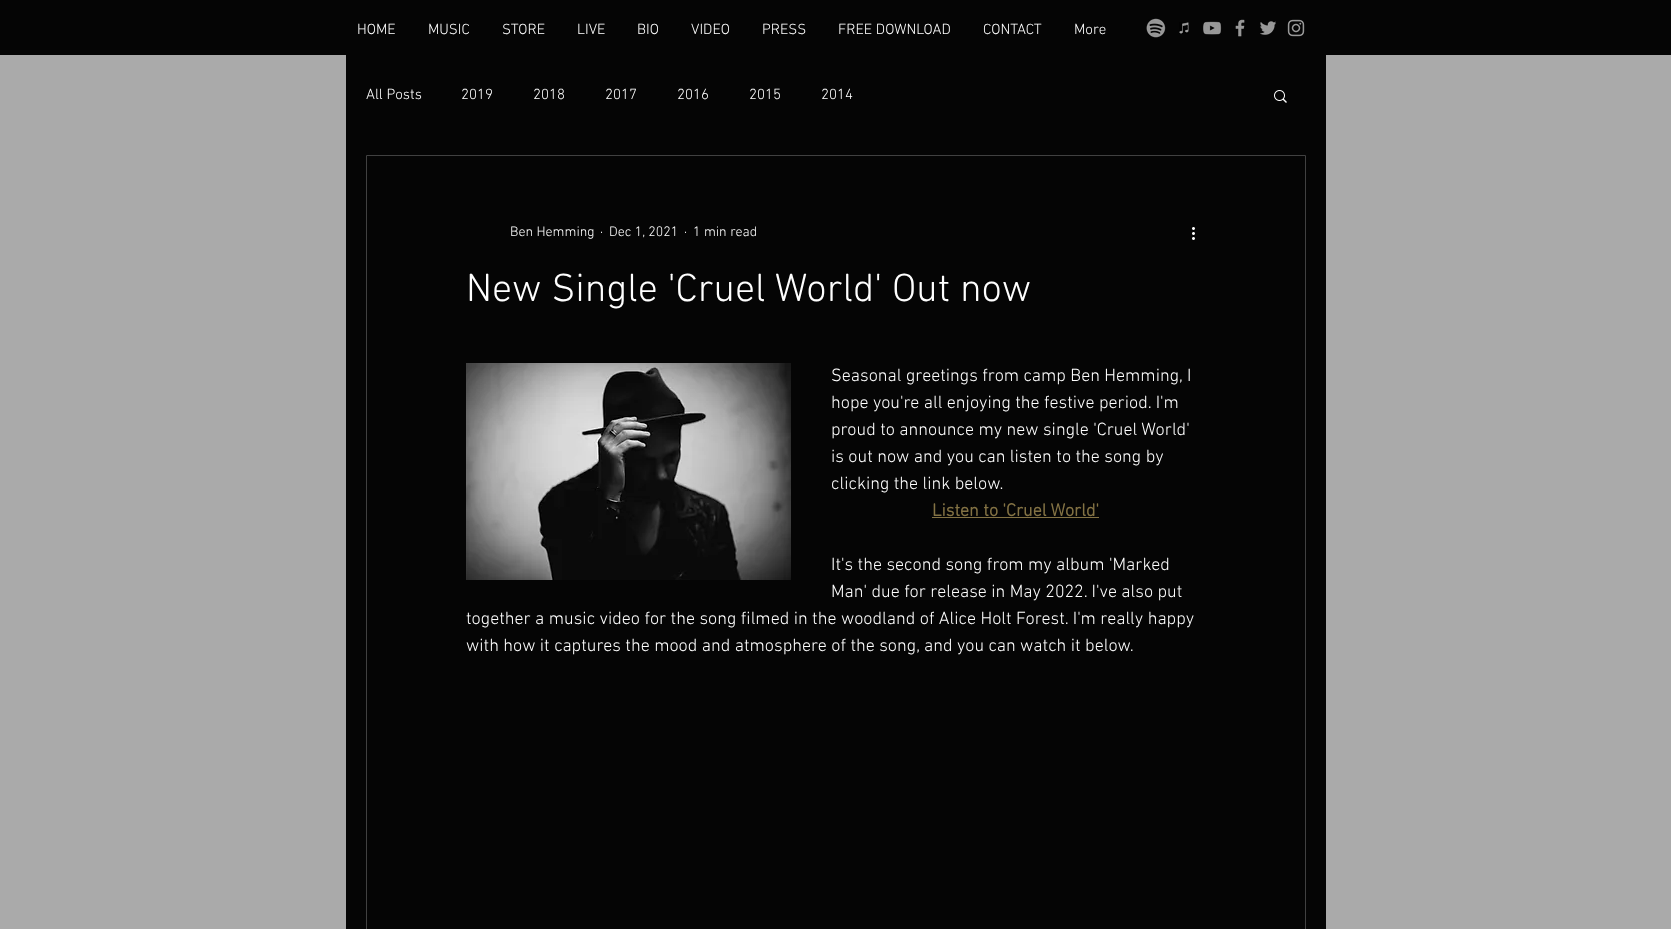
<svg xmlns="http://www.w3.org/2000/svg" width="1671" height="929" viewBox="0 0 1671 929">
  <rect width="100%" height="100%" fill="#aaa"/>
  <path d="M0 0h1671v55H0z" fill="#050505"/>
  <image x="1146" y="18" width="20" height="20" href="img/1.png"/>
  <image x="1179" y="22" width="10" height="12" href="img/2.png"/>
  <image x="1203" y="21" width="19" height="14" href="img/3.png"/>
  <image x="1235" y="19" width="10" height="18" href="img/4.png"/>
  <image x="1260" y="21" width="16" height="14" href="img/5.png"/>
  <image x="1287" y="19" width="18" height="18" href="img/6.png"/>
  <path d="M346 55h980v874H346z" fill="#050505"/>
  <image x="1274" y="90" width="13" height="13" href="img/7.png"/>
  <path d="M366.5 155.5h939v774H366.5z" fill="none" stroke="#414141"/>
  <image x="1192" y="227" width="3" height="13" href="img/8.png"/>
  <image x="466" y="363" width="325" height="217" href="img/9.png"/>
  <path d="M932 517h167v1H932z" fill="#837244"/>
  <g font-family="'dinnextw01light'" font-size="15" font-weight="300" fill="#fff">
    <text x="357" y="34">HOME</text>
    <text x="428" y="34">MUSIC</text>
    <text x="502" y="34">STORE</text>
    <text x="577" y="34">LIVE</text>
    <text x="637" y="34">BIO</text>
    <text x="691" y="34">VIDEO</text>
    <text x="762" y="34">PRESS</text>
    <text x="838" y="34">FREE DOWNLOAD</text>
    <text x="983" y="34">CONTACT</text>
    <text x="1074" y="34">More</text>
    <text x="366" y="99">All Posts</text>
    <text x="461" y="99">2019</text>
    <text x="533" y="99">2018</text>
    <text x="605" y="99">2017</text>
    <text x="677" y="99">2016</text>
    <text x="749" y="99">2015</text>
    <text x="821" y="99">2014</text>
  </g>
  <g font-family="'dinnextw01light'" font-size="14" font-weight="300" fill="#fff">
    <text x="510" y="236">Ben Hemming</text>
    <text x="600" y="236">·</text>
    <text x="609" y="236">Dec 1, 2021</text>
    <text x="684" y="236">·</text>
    <text x="693" y="236">1 min read</text>
  </g>
  <text x="466" y="301" font-family="'dinnextw01light'" font-size="40" font-weight="300" fill="#fff">New Single 'Cruel World' Out now</text>
  <g font-family="'dinnextw01light'" font-size="18" font-weight="300" fill="#fff">
    <text x="831" y="381">Seasonal greetings from camp Ben Hemming, I</text>
    <text x="831" y="408">hope you're all enjoying the festive period. I'm</text>
    <text x="831" y="435">proud to announce my new single 'Cruel World'</text>
    <text x="831" y="462">is out now and you can listen to the song by</text>
    <text x="831" y="489">clicking the link below.</text>
  </g>
  <text x="932" y="516" font-family="'dinnextw01light'" font-size="18" font-weight="bold" fill="#837244">Listen to 'Cruel World'</text>
  <g font-family="'dinnextw01light'" font-size="18" font-weight="300" fill="#fff">
    <text x="831" y="570">It's the second song from my album 'Marked</text>
    <text x="831" y="597">Man' due for release in May 2022. I've also put</text>
    <text x="466" y="624">together a music video for the song filmed in the woodland of Alice Holt Forest. I'm really happy</text>
    <text x="466" y="651">with how it captures the mood and atmosphere of the song, and you can watch it below.</text>
  </g>
</svg>
